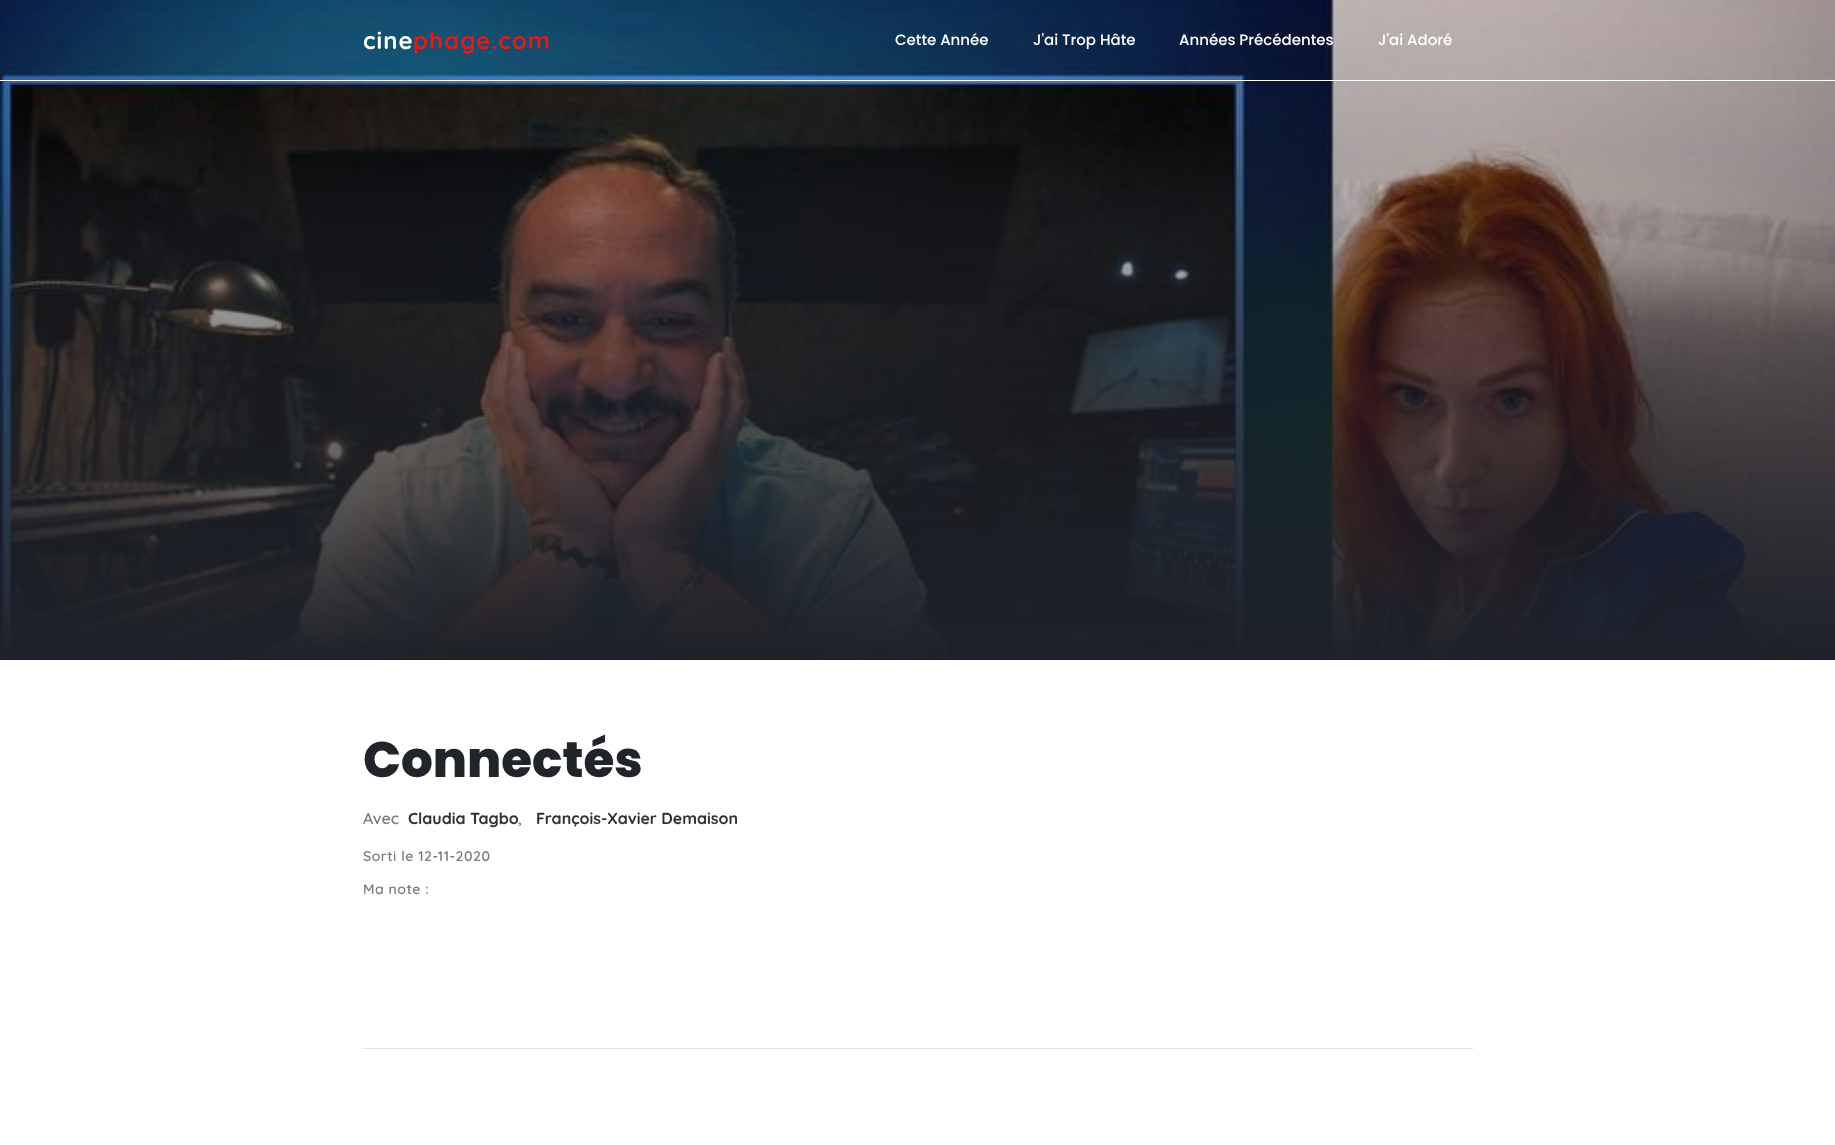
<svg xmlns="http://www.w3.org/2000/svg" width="1835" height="1145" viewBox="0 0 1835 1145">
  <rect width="100%" height="100%" fill="#fff"/>
  <image x="0" y="0" width="1835" height="660" href="img/1.png"/>
  <path d="M0 80h1835v1H0z" fill="#fff"/>
  <path d="M363 1048h1110v1H363z" fill="#dee2e6"/>
  <text x="363" y="49" font-family="Quicksand" font-size="24" font-weight="bold" letter-spacing="1" fill="#fff">cine</text>
  <text x="413" y="49" font-family="Quicksand" font-size="24" font-weight="bold" letter-spacing="1" fill="#e41a1a">phage.com</text>
  <g font-family="Poppins" font-size="15" font-weight="500" fill="#fff">
    <text x="895" y="45">Cette Année</text>
    <text x="1033" y="45">J'ai Trop Hâte</text>
    <text x="1179" y="45">Années Précédentes</text>
    <text x="1378" y="45">J'ai Adoré</text>
  </g>
  <text x="363" y="777" font-family="Poppins" font-size="50" font-weight="800" fill="#212529">Connectés</text>
  <text x="363" y="824" font-family="Quicksand" font-size="16" font-weight="600" fill="#7b7b7b">Avec</text>
  <text x="408" y="824" font-family="Quicksand" font-size="16" font-weight="bold" fill="#303030">Claudia Tagbo</text>
  <text x="518" y="824" font-family="Quicksand" font-size="16" font-weight="600" fill="#7b7b7b">,</text>
  <text x="536" y="824" font-family="Quicksand" font-size="16" font-weight="bold" fill="#303030">François-Xavier Demaison</text>
  <g font-family="Quicksand" font-size="14" font-weight="600" letter-spacing="0.5" fill="#7b7b7b">
    <text x="363" y="861">Sorti le 12-11-2020</text>
    <text x="363" y="894">Ma note :</text>
  </g>
</svg>
